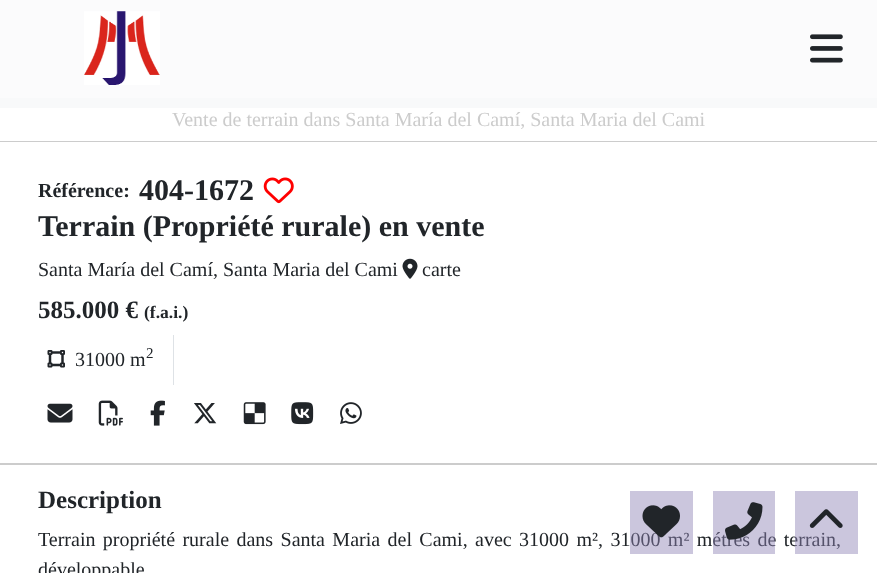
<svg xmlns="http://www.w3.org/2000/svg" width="877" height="573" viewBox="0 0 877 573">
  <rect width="100%" height="100%" fill="#f8f9fa"/>
  <path d="M0 0h877v98H0z" fill="#fbfbfc"/>
  <image x="84" y="11" width="76" height="74" href="img/1.png"/>
  <image x="810" y="34" width="33" height="29" href="img/2.png"/>
  <path d="M0 108h877v465H0z" fill="#fff"/>
  <path d="M0 141h877v1H0z" fill="#ccc"/>
  <path d="M0 463h877v2H0z" fill="#ccc"/>
  <image x="263" y="177" width="31" height="27" href="img/3.png"/>
  <image x="402" y="258" width="16" height="21" href="img/4.png"/>
  <path d="M173 335h1v50H173z" fill="#dee2e6"/>
  <image x="47" y="350" width="18" height="18" href="img/5.png"/>
  <image x="47" y="403" width="26" height="20" href="img/6.png"/>
  <image x="98" y="400" width="25" height="26" href="img/7.png"/>
  <image x="150" y="400" width="15" height="26" href="img/8.png"/>
  <image x="194" y="403" width="23" height="21" href="img/9.png"/>
  <image x="243" y="402" width="23" height="23" href="img/10.png"/>
  <image x="291" y="402" width="23" height="23" href="img/11.png"/>
  <image x="340" y="402" width="22" height="22" href="img/12.png"/>
  <text x="172" y="126" font-family="Liberation Serif" font-size="20" fill="#ccc">Vente de terrain dans Santa María del Camí, Santa Maria del Cami</text>
  <text x="38" y="197" font-family="Liberation Serif" font-size="20" font-weight="bold" fill="#212529">Référence:</text>
  <g font-family="Liberation Serif" font-size="30" font-weight="bold" fill="#212529">
    <text x="139" y="200">404-1672</text>
    <text x="38" y="236">Terrain (Propriété rurale) en vente</text>
  </g>
  <g font-family="Liberation Serif" font-size="20" fill="#212529">
    <text x="38" y="276">Santa María del Camí, Santa Maria del Cami</text>
    <text x="422" y="276">carte</text>
  </g>
  <text x="38" y="318" font-family="Liberation Serif" font-size="25" font-weight="bold" fill="#212529">585.000 €</text>
  <text x="144" y="318" font-family="Liberation Serif" font-size="17.5" font-weight="bold" fill="#212529">(f.a.i.)</text>
  <text x="75" y="366" font-family="Liberation Serif" font-size="20" fill="#212529">31000 m</text>
  <text x="146" y="358" font-family="Liberation Serif" font-size="15" fill="#212529">2</text>
  <text x="38" y="508" font-family="Liberation Serif" font-size="25" font-weight="bold" fill="#212529">Description</text>
  <g font-family="Liberation Serif" font-size="20" fill="#212529">
    <text x="38" y="546" word-spacing="2.4">Terrain propriété rurale dans Santa Maria del Cami, avec 31000 m², 31000 m² métres de terrain,</text>
    <text x="38" y="576">développable</text>
  </g>
  <path d="M630 491h63v63H630z" fill="#9186b778"/>
  <image x="642" y="505" width="38" height="33" href="img/13.png"/>
  <path d="M713 491h62v63H713z" fill="#9186b778"/>
  <image x="725" y="502" width="38" height="38" href="img/14.png"/>
  <path d="M795 491h63v63H795z" fill="#9186b778"/>
  <image x="809" y="509" width="34" height="19" href="img/15.png"/>
</svg>
